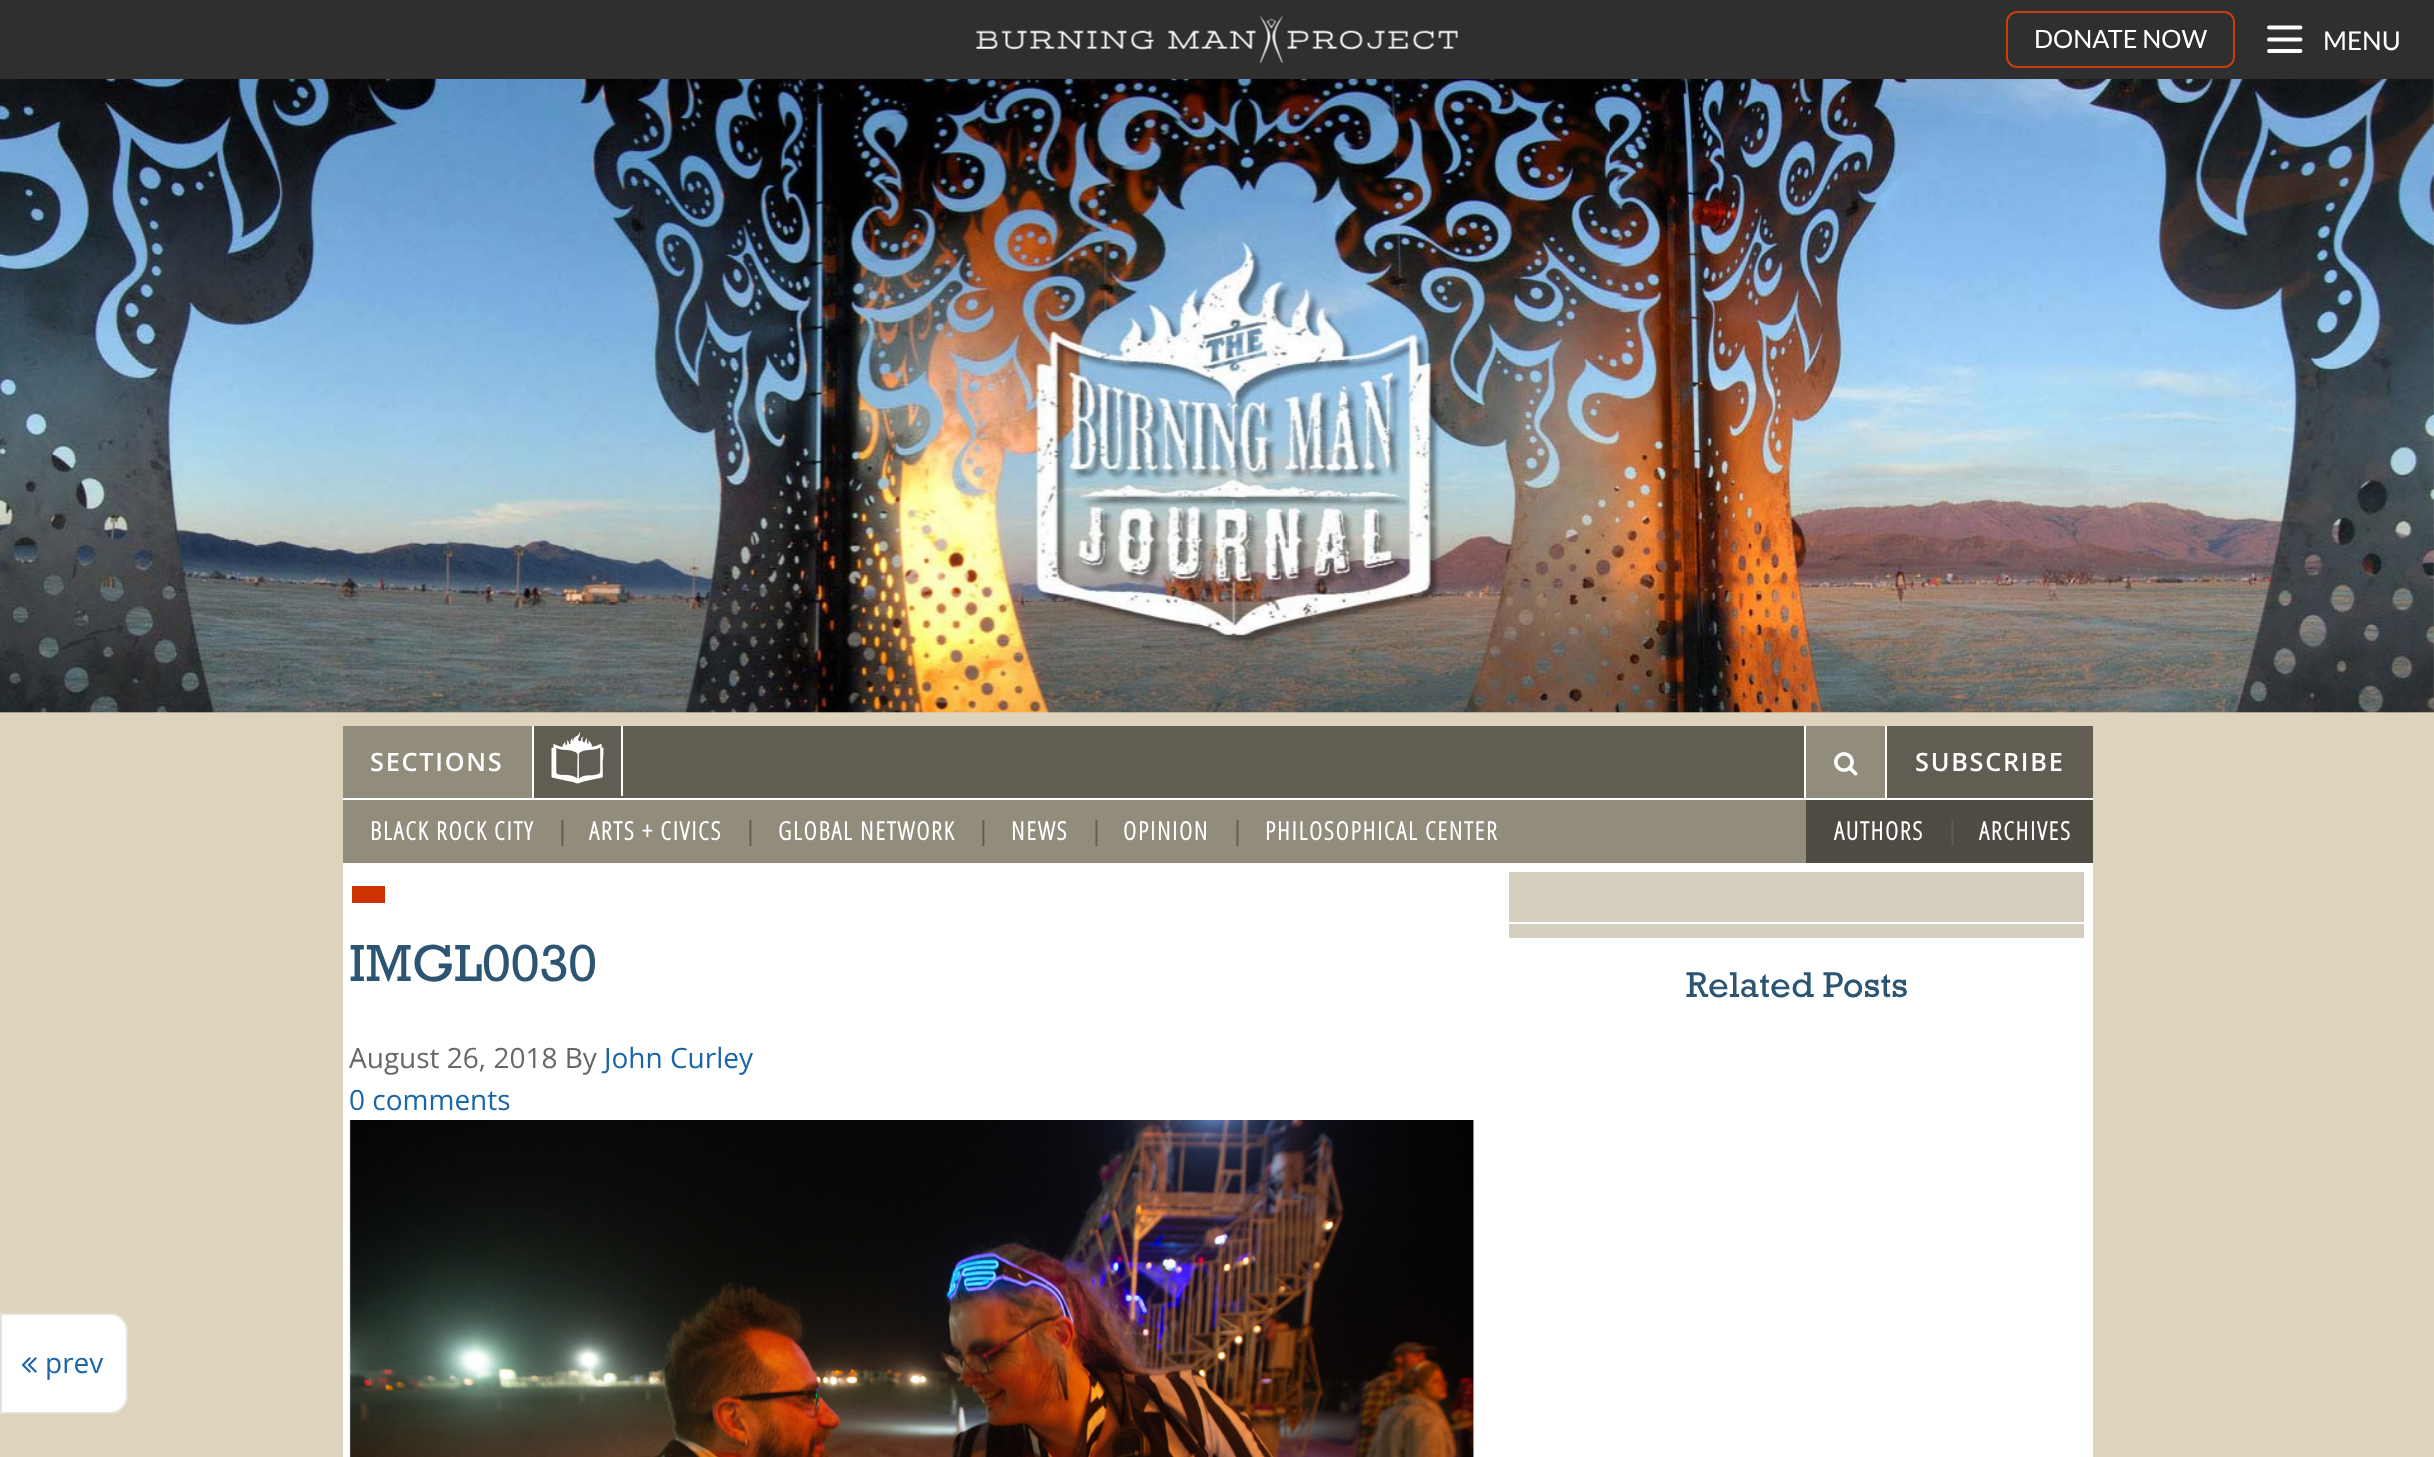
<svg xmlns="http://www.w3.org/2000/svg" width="2434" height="1457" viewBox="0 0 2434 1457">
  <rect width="100%" height="100%" fill="#ded4be"/>
  <path d="M0 0h2434v79H0z" fill="#2f2f2f"/>
  <image x="976" y="15" width="482" height="48" href="img/1.png"/>
  <rect x="2007" y="12" width="227" height="55" rx="10" fill="none" stroke="#c4400d" stroke-width="2"/>
  <path d="M2269 27.5H2300.5M2269 39.5H2300.5M2269 51H2300.5" fill="none" stroke="#fff" stroke-width="3.9" stroke-linecap="round" stroke-linejoin="round"/>
  <image x="0" y="79" width="2434" height="634" href="img/2.png"/>
  <path d="M534 726h1559v72H534z" fill="#625d53"/>
  <path d="M343 726h189v72H343z" fill="#928c7d"/>
  <path d="M532 726h2v72H532z" fill="#fff"/>
  <path d="M621 726h2v70H621z" fill="#fff"/>
  <image x="551" y="732" width="53" height="52" href="img/3.png"/>
  <path d="M1806 726h79v72H1806z" fill="#928c7d"/>
  <path d="M1885 726h2v72H1885z" fill="#fff"/>
  <path d="M1804 726h2v72H1804z" fill="#fff"/>
  <image x="1834" y="752" width="24" height="24" href="img/4.png"/>
  <path d="M343 800h1463v63H343z" fill="#928c7d"/>
  <path d="M343 798h1750v2H343z" fill="#fff"/>
  <path d="M1806 800h287v63H1806z" fill="#4e4b43"/>
  <path d="M343 863h1750v594H343z" fill="#fff"/>
  <path d="M352 886h33v17H352z" fill="#cd3301"/>
  <image x="349" y="1120" width="1125" height="337" href="img/5.png"/>
  <path d="M1 1314H110C119.5 1314 127 1321.5 127 1331V1396C127 1405.5 119.5 1413 110 1413H1Z" fill="#fff" stroke="#e7e2d7" stroke-width="2"/>
  <image x="21" y="1357" width="16" height="16" href="img/6.png"/>
  <path d="M1509 872h575v66H1509z" fill="#d5cfc0"/>
  <path d="M1509 922h575v2H1509z" fill="#fff"/>
  <text x="2034" y="48" font-family="Lato" font-size="25.25" fill="#fff">DONATE NOW</text>
  <text x="2323" y="50" font-family="Lato" font-size="26" fill="#fff">MENU</text>
  <g font-family="Open Sans" font-size="25.25" font-weight="600" letter-spacing="1.75" fill="#fff">
    <text x="370" y="771">SECTIONS</text>
    <text x="1915" y="771">SUBSCRIBE</text>
  </g>
  <text x="370" y="840" font-family="Open Sans Condensed" font-size="25.25" font-weight="bold" letter-spacing="1.75" fill="#fff">BLACK ROCK CITY</text>
  <text x="557" y="840" font-family="Open Sans Condensed" font-size="25.25" font-weight="bold" letter-spacing="1.75" fill="#625d53">|</text>
  <text x="589" y="840" font-family="Open Sans Condensed" font-size="25.25" font-weight="bold" letter-spacing="1.75" fill="#fff">ARTS + CIVICS</text>
  <text x="745" y="840" font-family="Open Sans Condensed" font-size="25.25" font-weight="bold" letter-spacing="1.75" fill="#625d53">|</text>
  <text x="778" y="840" font-family="Open Sans Condensed" font-size="25.25" font-weight="bold" letter-spacing="1.75" fill="#fff">GLOBAL NETWORK</text>
  <text x="978" y="840" font-family="Open Sans Condensed" font-size="25.25" font-weight="bold" letter-spacing="1.75" fill="#625d53">|</text>
  <text x="1011" y="840" font-family="Open Sans Condensed" font-size="25.25" font-weight="bold" letter-spacing="1.75" fill="#fff">NEWS</text>
  <text x="1091" y="840" font-family="Open Sans Condensed" font-size="25.25" font-weight="bold" letter-spacing="1.75" fill="#625d53">|</text>
  <text x="1123" y="840" font-family="Open Sans Condensed" font-size="25.25" font-weight="bold" letter-spacing="1.75" fill="#fff">OPINION</text>
  <text x="1232" y="840" font-family="Open Sans Condensed" font-size="25.25" font-weight="bold" letter-spacing="1.75" fill="#625d53">|</text>
  <g font-family="Open Sans Condensed" font-size="25.25" font-weight="bold" letter-spacing="1.75" fill="#fff">
    <text x="1265" y="840">PHILOSOPHICAL CENTER</text>
    <text x="1834" y="840">AUTHORS</text>
  </g>
  <text x="1947" y="840" font-family="Open Sans Condensed" font-size="25.25" font-weight="bold" letter-spacing="1.75" fill="#625d53">|</text>
  <text x="1979" y="840" font-family="Open Sans Condensed" font-size="25.25" font-weight="bold" letter-spacing="1.75" fill="#fff">ARCHIVES</text>
  <text x="349" y="981" font-family="Rockwell" font-size="53" fill="#2c5573">IMGL0030</text>
  <text x="349" y="1068" font-family="Open Sans" font-size="28" fill="#686765">August 26, 2018 By</text>
  <g font-family="Open Sans" font-size="28" fill="#1a64a8">
    <text x="604" y="1068">John Curley</text>
    <text x="349" y="1110">0 comments</text>
    <text x="45" y="1373">prev</text>
  </g>
  <text x="1686" y="997" font-family="Rockwell" font-size="36.5" fill="#2c5573">Related Posts</text>
</svg>
